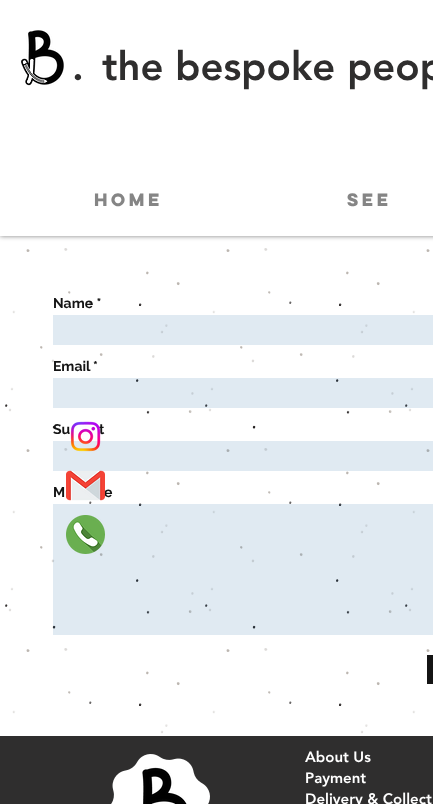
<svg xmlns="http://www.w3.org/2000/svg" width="433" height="804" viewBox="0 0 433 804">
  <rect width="100%" height="100%" fill="#fff"/>
  <path d="M0 0h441v236H0z" fill="#00000080" filter="blur(2.5px)"/>
  <path d="M0 0h433v236H0z" fill="#fff"/>
  <image x="21" y="30" width="43" height="56" href="img/1.png"/>
  <image x="5" y="248" width="425" height="486" href="img/7.png"/>
  <path d="M53 315h380v30H53z" fill="#4682b42b"/>
  <path d="M53 378h380v30H53z" fill="#4682b42b"/>
  <path d="M53 441h380v30H53z" fill="#4682b42b"/>
  <path d="M53 504h380v131H53z" fill="#4682b42b"/>
  <path d="M427 655h6v29H427z" fill="#141414"/>
  <image x="66" y="515" width="39" height="39" href="img/4.png"/>
  <path d="M0 736h433v68H0z" fill="#2f2e2e"/>
  <image x="111" y="754" width="99" height="50" href="img/5.png"/>
  <image x="142" y="767" width="45" height="37" href="img/6.png"/>
  <g font-family="'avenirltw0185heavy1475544'" font-size="40" font-weight="900" fill="#2f2e2e">
    <text x="72" y="80">.</text>
    <text x="102" y="80">the bespoke peop</text>
  </g>
  <g font-family="'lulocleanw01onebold'" font-size="16" font-weight="bold" fill="#858585">
    <text x="94" y="206">Home</text>
    <text x="347" y="206">See</text>
  </g>
  <g font-family="Raleway" font-size="14" font-weight="bold" fill="#141414">
    <text x="53" y="308">Name *</text>
    <text x="53" y="371">Email</text>
    <text x="93" y="371">*</text>
    <text x="53" y="434">Su</text>
    <text x="99" y="434">t</text>
    <text x="53" y="497">M</text>
    <text x="104" y="497">e</text>
  </g>
  <image x="70" y="421" width="31" height="31" href="img/2.png"/>
  <image x="66" y="470" width="39" height="31" href="img/3.png"/>
  <g font-family="'avenirltw0185heavy1475544'" font-size="15" font-weight="900" fill="#fff">
    <text x="305" y="762">About Us</text>
    <text x="305" y="783">Payment</text>
    <text x="305" y="804">Delivery &amp; Collect</text>
  </g>
</svg>
